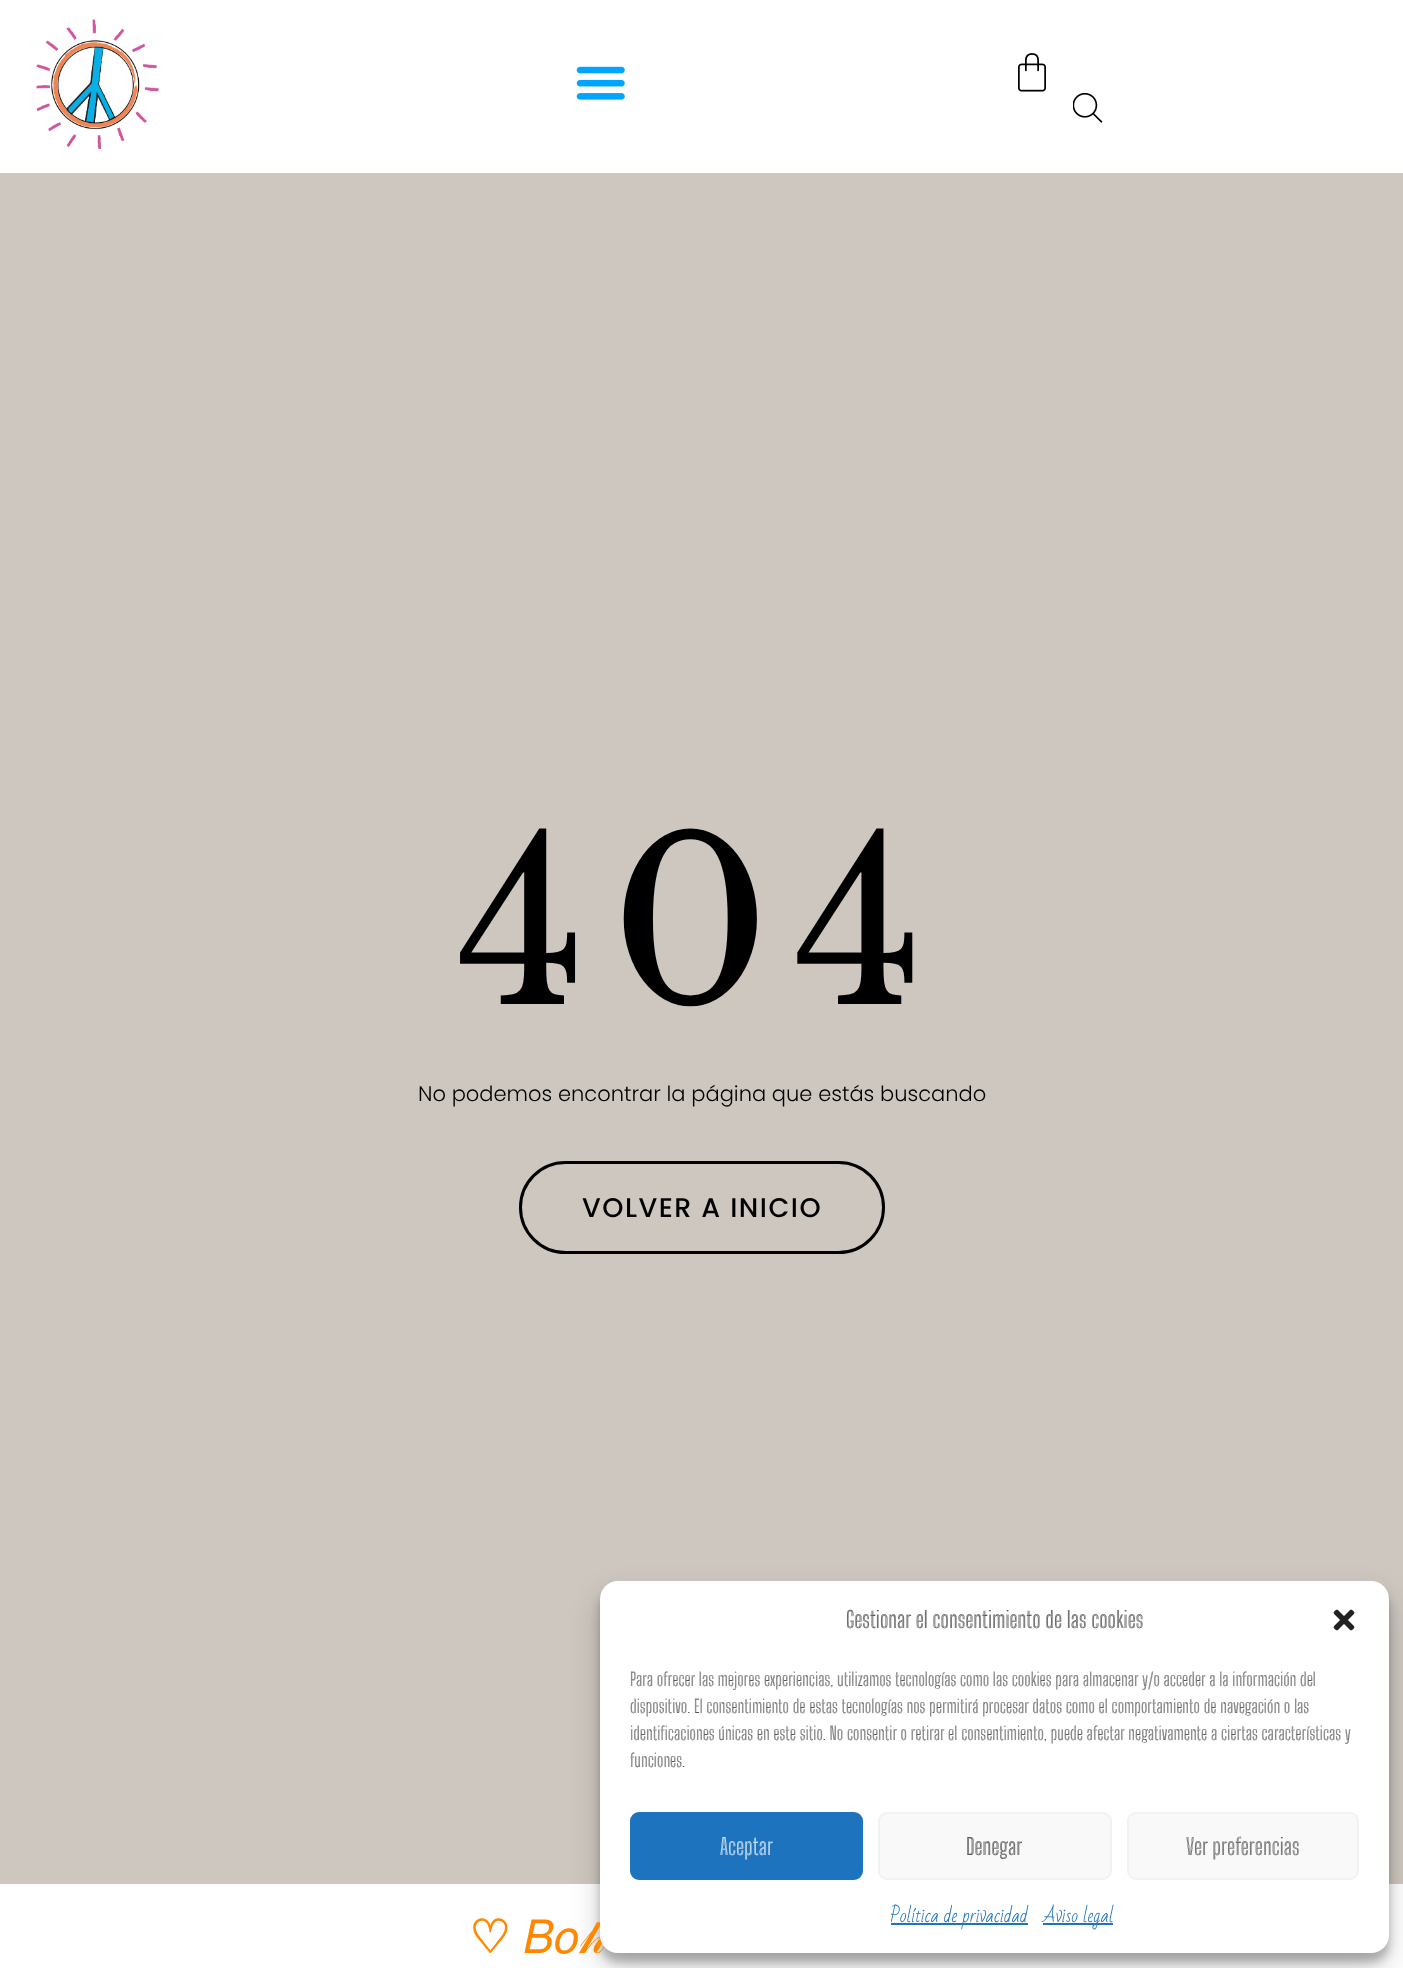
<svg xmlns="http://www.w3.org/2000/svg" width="1403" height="1968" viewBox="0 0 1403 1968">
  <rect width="100%" height="100%" fill="#fff"/>
  <image x="36" y="19" width="123" height="131" href="img/1.png"/>
  <image x="576" y="66" width="49" height="34" href="img/2.png"/>
  <image x="1018" y="53" width="28" height="39" href="img/3.png"/>
  <image x="1073" y="93" width="30" height="30" href="img/4.png"/>
  <path d="M0 173h1403v1711H0z" fill="#cec7c0"/>
  <rect x="520.5" y="1162.5" width="363" height="90" rx="45" fill="none" stroke="#000" stroke-width="3"/>
  <rect x="600" y="1590" width="789" height="372" rx="18" fill="#0000003b" filter="blur(4.5px)"/>
  <rect x="600" y="1596" width="789" height="372" rx="18" fill="#00000030" filter="blur(15px)"/>
  <text x="456" y="1004" font-family="Libre Baskerville" font-size="225" letter-spacing="22.5" fill="#000">404</text>
  <text x="418" y="1101" font-family="Poppins" font-size="21" font-weight="300" fill="#000">No podemos encontrar la página que estás buscando</text>
  <text x="582" y="1217" font-family="Poppins" font-size="27" font-weight="500" letter-spacing="1.5" fill="#000">VOLVER A INICIO</text>
  <text x="469" y="1953" font-family="DejaVu Sans" font-size="46" font-weight="bold" fill="#f80">♡</text>
  <text x="524" y="1953" font-family="FreeSans" font-size="46" fill="#f80">𝐵𝑜</text>
  <text x="580" y="1953" font-family="FreeSerif" font-size="46" fill="#f80">𝒽</text>
  <rect x="600" y="1581" width="789" height="372" rx="18" fill="#fff"/>
  <g font-family="Big Shoulders Inline Display" font-size="18" fill="#222">
    <text x="630" y="1767">funciones.</text>
    <text x="630" y="1740">identificaciones únicas en este sitio. No consentir o retirar el consentimiento, puede afectar negativamente a ciertas características y</text>
    <text x="630" y="1713">dispositivo. El consentimiento de estas tecnologías nos permitirá procesar datos como el comportamiento de navegación o las</text>
    <text x="630" y="1686">Para ofrecer las mejores experiencias, utilizamos tecnologías como las cookies para almacenar y/o acceder a la información del</text>
  </g>
  <image x="1333" y="1609" width="22" height="22" href="img/5.png"/>
  <path d="M1043 1923h70v2H1043z" fill="#1e73be"/>
  <text x="1043" y="1922" font-family="Bad Script" font-size="18" fill="#1e73be">Aviso legal</text>
  <path d="M891 1923h137v2H891z" fill="#1e73be"/>
  <text x="890" y="1922" font-family="Bad Script" font-size="18" fill="#1e73be">Política de privacidad</text>
  <rect x="1128" y="1813" width="230" height="66" rx="8" fill="#f9f9f9" stroke="#f2f2f2" stroke-width="2"/>
  <text x="1186" y="1855" font-family="Big Shoulders Inline Display" font-size="22.5" font-weight="500" fill="#333">Ver preferencias</text>
  <rect x="879" y="1813" width="232" height="66" rx="8" fill="#f9f9f9" stroke="#f2f2f2" stroke-width="2"/>
  <text x="966" y="1855" font-family="Big Shoulders Inline Display" font-size="22.5" font-weight="500" fill="#222">Denegar</text>
  <rect x="631" y="1813" width="231" height="66" rx="8" fill="#1e73be" stroke="#1e73be" stroke-width="2"/>
  <text x="720" y="1855" font-family="Big Shoulders Inline Display" font-size="22.5" font-weight="500" fill="#fff">Aceptar</text>
  <text x="846" y="1628" font-family="Big Shoulders Inline Display" font-size="22.5" font-weight="500" fill="#222">Gestionar el consentimiento de las cookies</text>
</svg>
